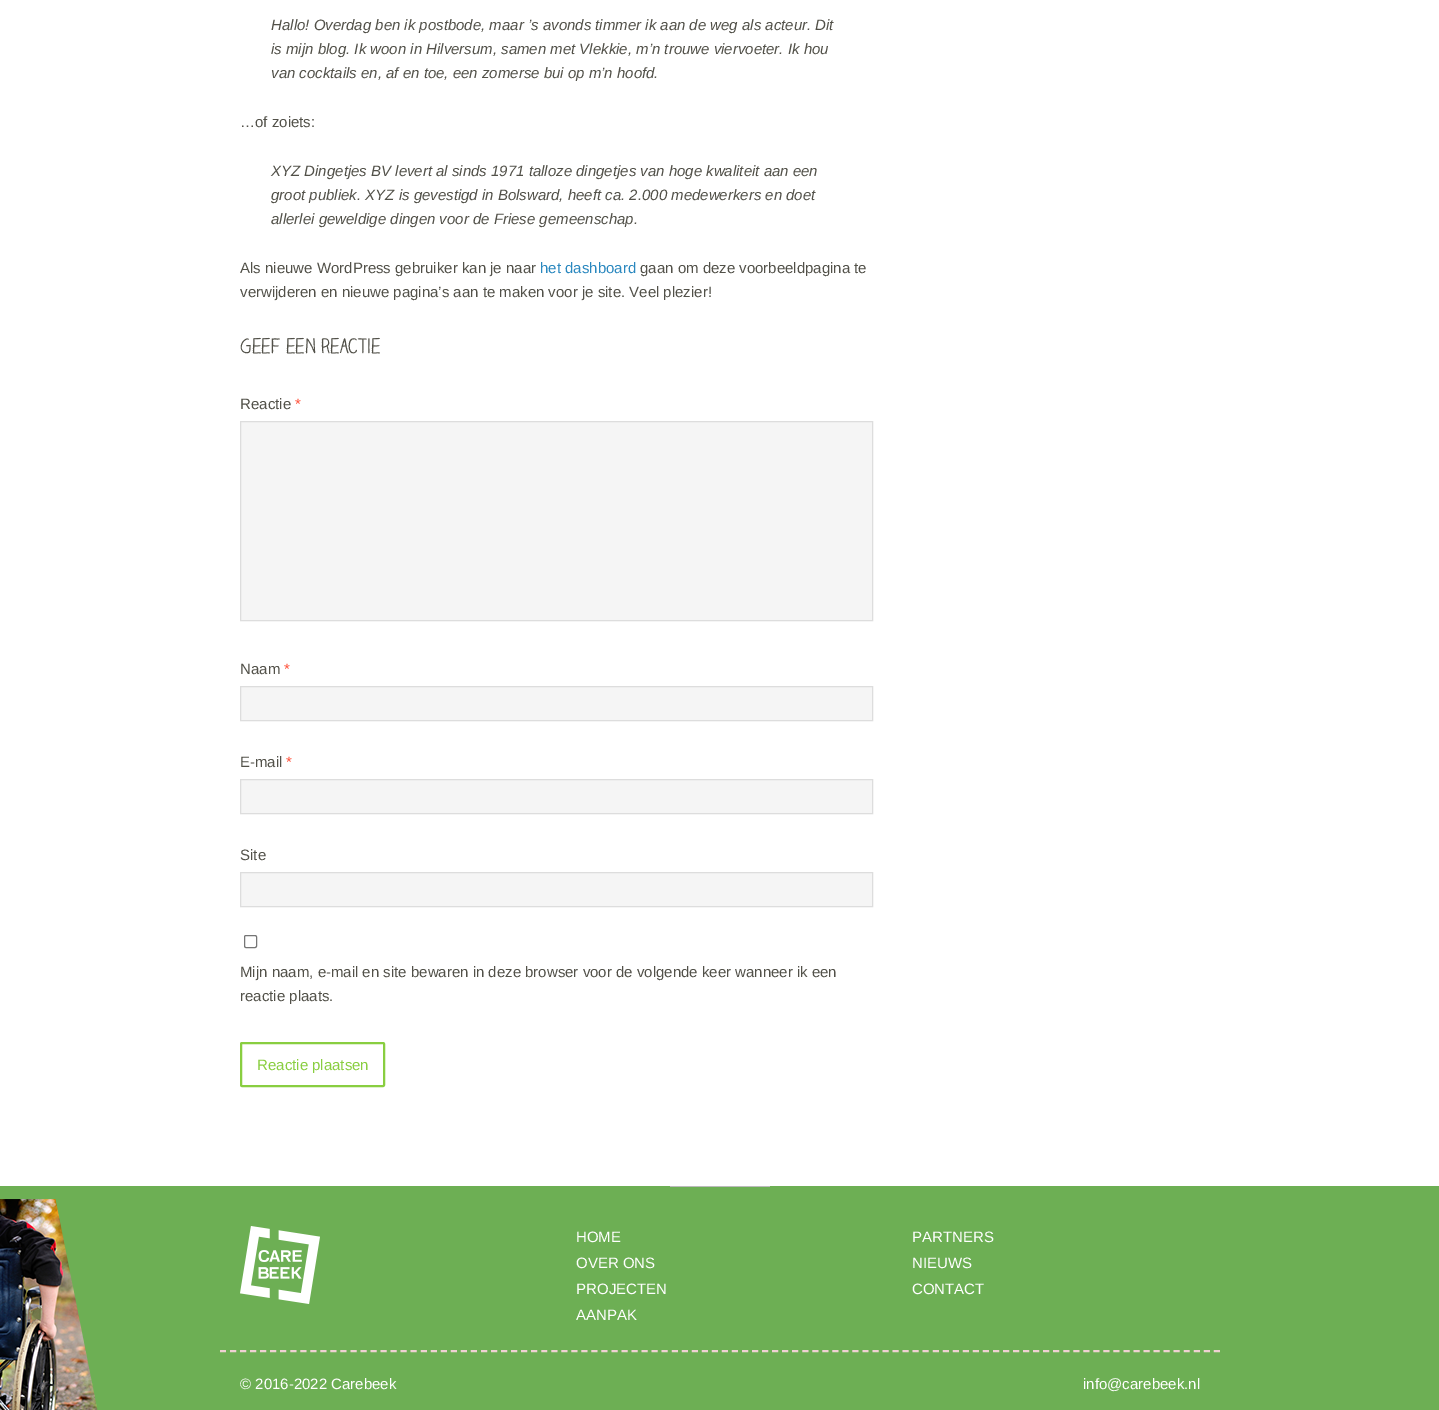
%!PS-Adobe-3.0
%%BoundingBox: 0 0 1439 1410
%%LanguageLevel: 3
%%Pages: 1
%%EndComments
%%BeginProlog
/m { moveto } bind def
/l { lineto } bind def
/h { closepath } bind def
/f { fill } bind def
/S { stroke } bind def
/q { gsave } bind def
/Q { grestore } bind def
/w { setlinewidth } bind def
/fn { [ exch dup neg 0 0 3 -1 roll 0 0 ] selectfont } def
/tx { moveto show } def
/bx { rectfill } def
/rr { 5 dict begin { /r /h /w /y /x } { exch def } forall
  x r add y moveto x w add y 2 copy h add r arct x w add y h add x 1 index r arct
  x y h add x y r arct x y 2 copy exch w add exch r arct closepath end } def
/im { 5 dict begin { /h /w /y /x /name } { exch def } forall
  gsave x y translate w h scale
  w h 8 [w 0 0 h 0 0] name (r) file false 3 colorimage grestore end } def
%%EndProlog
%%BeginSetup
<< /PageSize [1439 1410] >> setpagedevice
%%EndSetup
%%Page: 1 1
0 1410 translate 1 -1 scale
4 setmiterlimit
1 setgray
0 0 1439 1410 bx
/LiberationSans-Italic 15 fn
0.322 0.318 0.286 setrgbcolor
(Hallo! Overdag ben ik postbode, maar ’s avonds timmer ik aan de weg als acteur. Dit) 271 30 tx
(is mijn blog. Ik woon in Hilversum, samen met Vlekkie, m’n trouwe viervoeter. Ik hou) 271 54 tx
(van cocktails en, af en toe, een zomerse bui op m’n hoofd.) 271 78 tx
/LiberationSans-Regular 15 fn
(…of zoiets:) 240 127 tx
/LiberationSans-Italic 15 fn
(XYZ Dingetjes BV levert al sinds 1971 talloze dingetjes van hoge kwaliteit aan een) 271 176 tx
(groot publiek. XYZ is gevestigd in Bolsward, heeft ca. 2.000 medewerkers en doet) 271 200 tx
(allerlei geweldige dingen voor de Friese gemeenschap.) 271 224 tx
/LiberationSans-Regular 15 fn
(Als nieuwe WordPress gebruiker kan je naar) 240 273 tx
0.165 0.533 0.749 setrgbcolor
(het dashboard) 540 273 tx
0.322 0.318 0.286 setrgbcolor
(gaan om deze voorbeeldpagina te) 640 273 tx
(verwijderen en nieuwe pagina’s aan te maken voor je site. Veel plezier!) 240 297 tx
/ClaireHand-Regular 20 fn
(Geef een reactie) 240 353 tx
/LiberationSans-Regular 15 fn
(Reactie) 240 409 tx
1 0.294 0.2 setrgbcolor
(*) 295 409 tx
0.961 setgray
240.5 421.5 m 872.5 421.5 l 872.5 620.5 l 240.5 620.5 l h q f Q
0.867 setgray
S
0.322 0.318 0.286 setrgbcolor
(Naam) 240 674 tx
1 0.294 0.2 setrgbcolor
(*) 284 674 tx
0.961 setgray
240.5 686.5 m 872.5 686.5 l 872.5 720.5 l 240.5 720.5 l h q f Q
0.867 setgray
S
0.322 0.318 0.286 setrgbcolor
(E-mail) 240 767 tx
1 0.294 0.2 setrgbcolor
(*) 286 767 tx
0.961 setgray
240.5 779.5 m 872.5 779.5 l 872.5 813.5 l 240.5 813.5 l h q f Q
0.867 setgray
S
0.322 0.318 0.286 setrgbcolor
(Site) 240 860 tx
0.961 setgray
240.5 872.5 m 872.5 872.5 l 872.5 906.5 l 240.5 906.5 l h q f Q
0.867 setgray
S
0.463 setgray
244.5 935.5 12 12 1.5 rr S
0.322 0.318 0.286 setrgbcolor
(Mijn naam, e-mail en site bewaren in deze browser voor de volgende keer wanneer ik een) 240 977 tx
(reactie plaats.) 240 1001 tx
0.537 0.808 0.251 setrgbcolor
2 w
241 1043 143 43 1 rr S
(Reactie plaatsen) 257 1070 tx
0.427 0.686 0.329 setrgbcolor
0 1186 1439 224 bx
(image0.raw) 0 1199 98 211 im
0.733 setgray
670 1186 100 1 bx
0.937 0.82 0.82 setrgbcolor
[6 4.04] 0 setdash
220 1351 m 1220 1351 l S
(image1.raw) 240 1226 80 78 im
1 setgray
(HOME) 576 1242 tx
(OVER ONS) 576 1268 tx
(PROJECTEN) 576 1294 tx
(AANPAK) 576 1320 tx
(PARTNERS) 912 1242 tx
(NIEUWS) 912 1268 tx
(CONTACT) 912 1294 tx
(© 2016-2022 Carebeek) 240 1389 tx
(info@carebeek.nl) 1083 1389 tx
showpage
%%EOF
